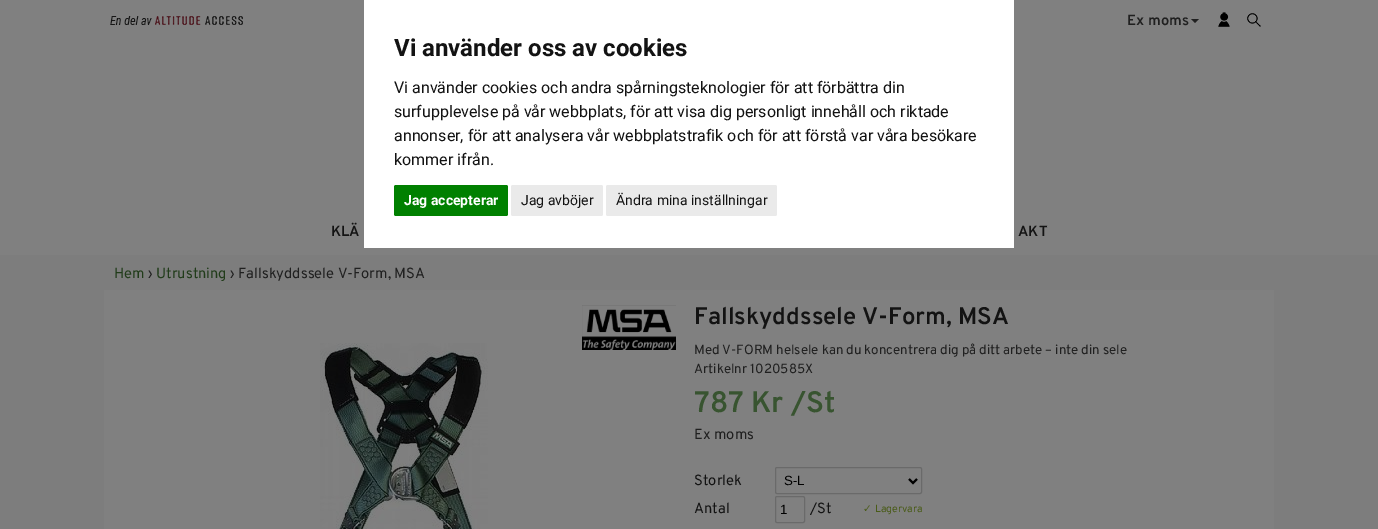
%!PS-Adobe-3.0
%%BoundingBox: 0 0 1378 529
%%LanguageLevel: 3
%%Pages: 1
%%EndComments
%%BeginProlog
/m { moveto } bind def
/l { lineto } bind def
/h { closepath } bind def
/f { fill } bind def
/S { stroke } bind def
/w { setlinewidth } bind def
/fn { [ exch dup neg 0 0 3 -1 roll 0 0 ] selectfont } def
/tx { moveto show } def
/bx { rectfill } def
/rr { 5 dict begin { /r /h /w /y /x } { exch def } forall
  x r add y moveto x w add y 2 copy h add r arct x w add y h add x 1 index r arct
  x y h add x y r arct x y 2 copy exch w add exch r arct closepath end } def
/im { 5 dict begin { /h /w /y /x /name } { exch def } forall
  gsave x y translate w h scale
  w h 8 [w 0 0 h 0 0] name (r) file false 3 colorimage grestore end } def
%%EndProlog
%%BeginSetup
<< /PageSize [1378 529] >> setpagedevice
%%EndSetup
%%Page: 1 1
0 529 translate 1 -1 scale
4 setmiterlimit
0.49 setgray
0 0 1378 529 bx
0.502 setgray
0 0 1378 255 bx
(image0.raw) 110 16 133 9 im
/Overpass-SemiBold 14.7 fn
0.125 setgray
(Ex moms) 1127 25 tx
1191 19 m 1199 19 l 1195 23 l h f
(image1.raw) 1218 12 12 15 im
(image2.raw) 1247 13 14 14 im
0.075 setgray
(KLÄ) 331 236 tx
(AKT) 1018 236 tx
1 setgray
364 0 650 248 bx
/Roboto-Bold 24 fn
0.075 setgray
(Vi använder oss av cookies) 394 56 tx
/Roboto-Regular 16 fn
(Vi använder cookies och andra spårningsteknologier för att förbättra din) 394 93 tx
(surfupplevelse på vår webbplats, för att visa dig personligt innehåll och riktade) 394 117 tx
(annonser, för att analysera vår webbplatstrafik och för att förstå var våra besökare) 394 141 tx
(kommer ifrån.) 394 165 tx
0 0.502 0 setrgbcolor
394 185 114 31 2 rr f
/Roboto-Bold 14 fn
1 setgray
(Jag accepterar) 404 205 tx
0.918 setgray
511 185 92 31 2 rr f
/Roboto-Regular 14 fn
0.075 setgray
(Jag avböjer) 521 205 tx
0.918 setgray
606 185 171 31 2 rr f
0.075 setgray
(Ändra mina inställningar) 616 205 tx
/Overpass-Regular 14.7 fn
0.129 0.235 0.102 setrgbcolor
(Hem) 114 278 tx
0.125 setgray
(›) 148 278 tx
0.129 0.235 0.102 setrgbcolor
(Utrustning) 156 278 tx
0.125 setgray
(› Fallskyddssele V-Form, MSA) 230 278 tx
0.502 setgray
104 290 1170 239 bx
(image3.raw) 582 305 94 45 im
(image4.raw) 320 343 168 186 im
/Overpass-SemiBold 24 fn
0.075 setgray
(Fallskyddssele V-Form, MSA) 694 324 tx
/Overpass-Regular 13.3 fn
0.125 setgray
(Med V-FORM helsele kan du koncentrera dig på ditt arbete – inte din sele) 694 354 tx
(Artikelnr 1020585X) 694 373 tx
/Overpass-SemiBold 29.5 fn
0.22 0.329 0.188 setrgbcolor
(787 Kr /St) 694 412 tx
/Overpass-Regular 14.7 fn
0.125 setgray
(Ex moms) 694 439 tx
0.075 setgray
(Storlek) 694 485 tx
0.416 setgray
775.5 467.5 146 26 1.5 rr S
0 setgray
2 w
909 479 m 913 483 l 917 479 l S
/LiberationSans-Regular 13.3 fn
(S-L) 784 485 tx
/Overpass-Regular 14.7 fn
0.075 setgray
(Antal) 694 513 tx
0.416 setgray
1 w
775.5 496.5 29 26 1.5 rr S
/LiberationSans-Regular 13.3 fn
0 setgray
(1) 780 514 tx
/Overpass-Regular 14.7 fn
0.075 setgray
(/St) 810 513 tx
/DejaVuSans-Regular 10.5 fn
0.29 0.361 0.094 setrgbcolor
(✓) 863 512 tx
/Overpass-Regular 10.5 fn
(Lagervara) 875 512 tx
showpage
%%EOF
